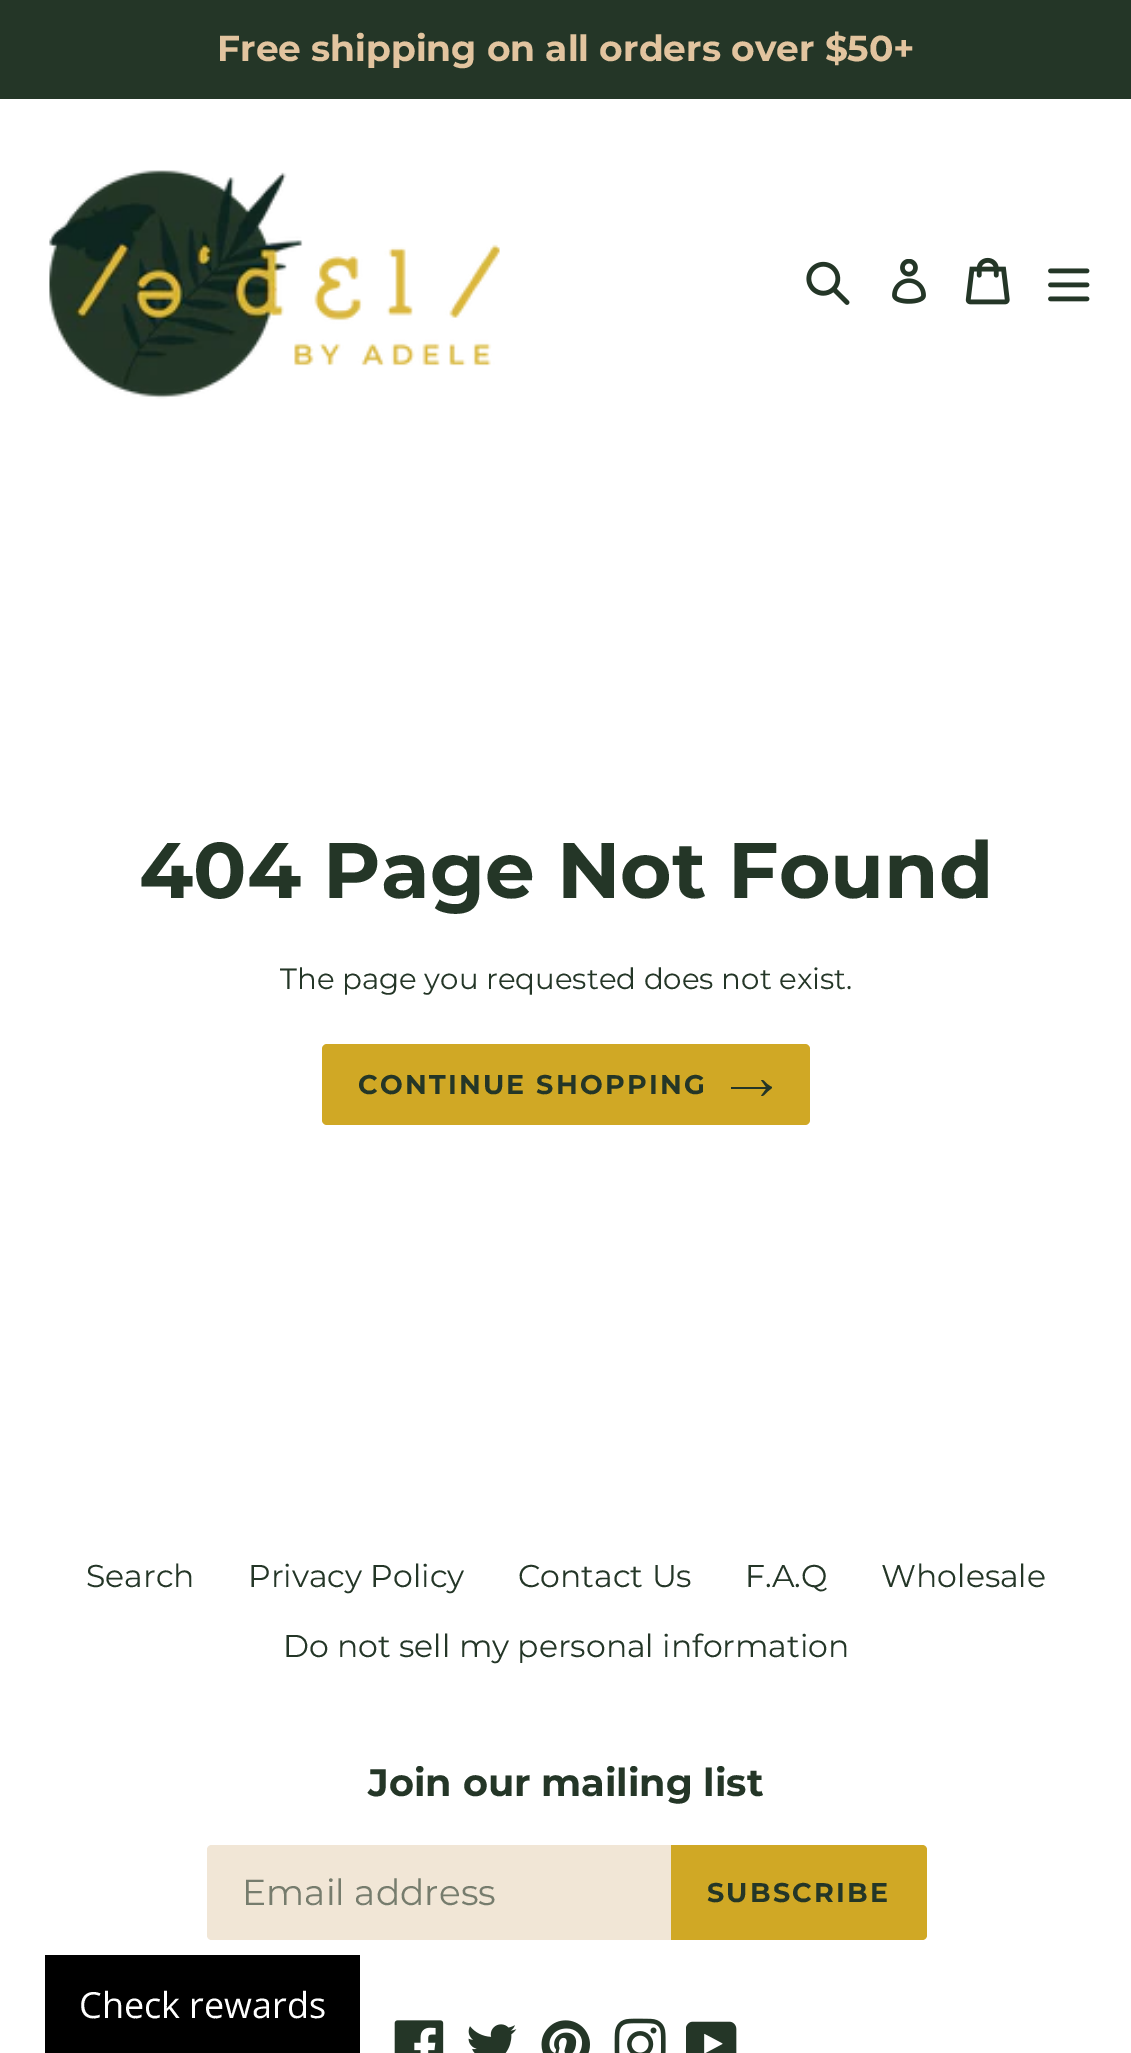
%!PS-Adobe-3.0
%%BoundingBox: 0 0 1131 2053
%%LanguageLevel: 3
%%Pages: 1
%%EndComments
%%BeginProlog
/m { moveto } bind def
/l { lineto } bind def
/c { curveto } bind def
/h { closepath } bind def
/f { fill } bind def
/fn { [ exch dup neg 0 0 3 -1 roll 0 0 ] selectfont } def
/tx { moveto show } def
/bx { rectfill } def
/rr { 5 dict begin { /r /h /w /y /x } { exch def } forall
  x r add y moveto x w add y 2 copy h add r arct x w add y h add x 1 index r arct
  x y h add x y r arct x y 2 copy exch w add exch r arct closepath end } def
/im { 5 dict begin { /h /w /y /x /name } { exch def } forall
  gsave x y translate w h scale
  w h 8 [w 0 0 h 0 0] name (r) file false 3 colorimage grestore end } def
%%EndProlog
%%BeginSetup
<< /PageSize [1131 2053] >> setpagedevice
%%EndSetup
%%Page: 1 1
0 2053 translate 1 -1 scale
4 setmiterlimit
1 setgray
0 0 1131 2053 bx
0.141 0.212 0.153 setrgbcolor
0 0 1131 99 bx
/Montserrat-Bold 36 fn
0.886 0.769 0.624 setrgbcolor
(Free shipping on all orders over $50+) 217 61 tx
(image0.raw) 49 170 451 229 im
(image1.raw) 806 261 44 44 im
(image2.raw) 892 259 34 45 im
(image3.raw) 965 257 45 48 im
(image4.raw) 1048 268 42 34 im
/Montserrat-Bold 78.75 fn
0.141 0.212 0.153 setrgbcolor
(404 Page Not Found) 139 898 tx
/Montserrat-Regular 29.25 fn
(The page you requested does not exist.) 280 989 tx
0.816 0.659 0.145 setrgbcolor
322 1044 488 81 5 rr f
/Montserrat-Bold 27 fn
0.141 0.212 0.153 setrgbcolor
358 1094 m 2.2 0 (CONTINUE SHOPPING) ashow
763 1080 m 766 1083 769 1086 772 1087 c 772 1088 l 769 1090 766 1093 763 1096 c 761 1096 l 766 1089 l 731 1089 l 731 1087 l 766 1087 l 761 1080 l h eofill
/Montserrat-Regular 31.5 fn
(Search) 86 1587 tx
(Privacy Policy) 248 1587 tx
(Contact Us) 518 1587 tx
(F.A.Q) 745 1587 tx
(Wholesale) 881 1587 tx
(Do not sell my personal information) 283 1657 tx
/Montserrat-Bold 38.25 fn
(Join our mailing list) 368 1796 tx
0.945 0.902 0.839 setrgbcolor
212 1845 m 671 1845 l 671 1940 l 212 1940 l 209 1940 207 1938 207 1935 c 207 1850 l 207 1847 209 1845 212 1845 c h f
/Montserrat-Regular 36 fn
0.463 0.486 0.427 setrgbcolor
(Email address) 242 1905 tx
0.816 0.659 0.145 setrgbcolor
671 1845 m 922 1845 l 925 1845 927 1847 927 1850 c 927 1935 l 927 1938 925 1940 922 1940 c 671 1940 l h f
/Montserrat-Bold 27 fn
0.141 0.212 0.153 setrgbcolor
707 1902 m 2.2 0 (SUBSCRIBE) ashow
(image5.raw) 394 2020 50 33 im
(image6.raw) 468 2024 49 29 im
(image7.raw) 541 2020 49 33 im
(image8.raw) 614 2018 52 35 im
(image9.raw) 686 2021 51 32 im
0 setgray
45 1955 315 98 bx
/OpenSans-Regular 36 fn
1 setgray
(Check rewards) 79 2018 tx
showpage
%%EOF
